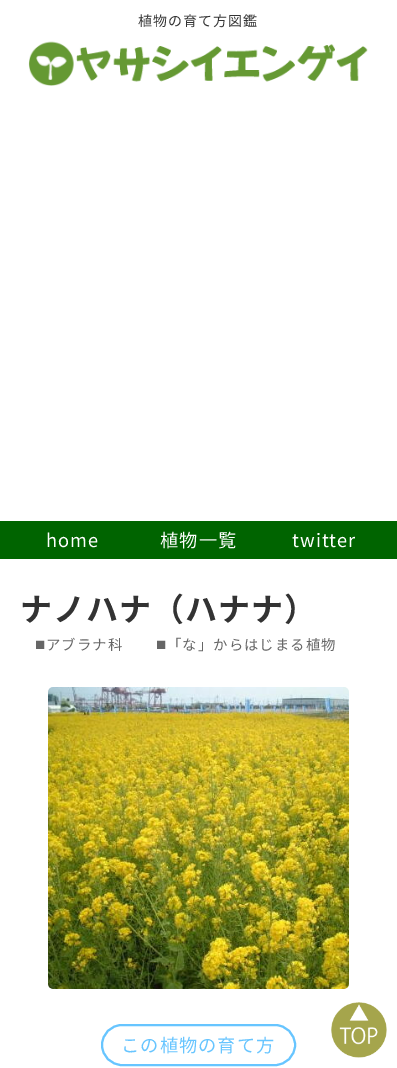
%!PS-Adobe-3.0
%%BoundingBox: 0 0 397 1068
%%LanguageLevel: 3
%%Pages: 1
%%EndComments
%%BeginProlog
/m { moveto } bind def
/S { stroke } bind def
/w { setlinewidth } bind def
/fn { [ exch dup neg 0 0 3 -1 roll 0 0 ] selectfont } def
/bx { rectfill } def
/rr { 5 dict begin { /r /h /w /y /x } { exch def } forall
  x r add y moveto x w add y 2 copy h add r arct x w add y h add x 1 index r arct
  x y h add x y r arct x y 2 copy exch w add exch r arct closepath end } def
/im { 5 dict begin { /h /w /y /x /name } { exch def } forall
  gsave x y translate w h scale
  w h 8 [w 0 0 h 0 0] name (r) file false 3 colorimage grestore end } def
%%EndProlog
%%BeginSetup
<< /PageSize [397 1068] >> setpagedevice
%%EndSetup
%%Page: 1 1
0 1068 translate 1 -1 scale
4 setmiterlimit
1 setgray
0 0 397 1068 bx
/NotoSansJP-Regular 14 fn
0.2 setgray
138 26 m 1 0 (植物の育て方図鑑) ashow
(image0.raw) 28 41 340 45 im
0 0.392 0 setrgbcolor
0 521 397 38 bx
/NotoSansJP-Regular 18.25 fn
1 setgray
46 547 m 1 0 (home) ashow
160 547 m 1 0 (植物一覧) ashow
292 547 m 1 0 (twitter) ashow
/NotoSansJP-Bold 32 fn
0.2 setgray
20 621 m 1 0 (ナノハナ（ハナナ）) ashow
/LiberationSans-Regular 17 fn
0.4 setgray
35 650 m 1 0 (■) ashow
/NotoSansJP-Regular 14.4 fn
46 650 m 1 0 (アブラナ科) ashow
/LiberationSans-Regular 17 fn
156 650 m 1 0 (■) ashow
/NotoSansJP-Regular 14.4 fn
167 650 m 1 0 (「な」からはじまる植物) ashow
(image1.raw) 48 687 301 302 im
0.404 0.773 1 setrgbcolor
2 w
102 1025 193 40 20 rr S
/NotoSansJP-Regular 18.25 fn
121 1052 m 1 0 (この植物の育て方) ashow
(image2.raw) 331 1002 56 56 im
showpage
%%EOF
